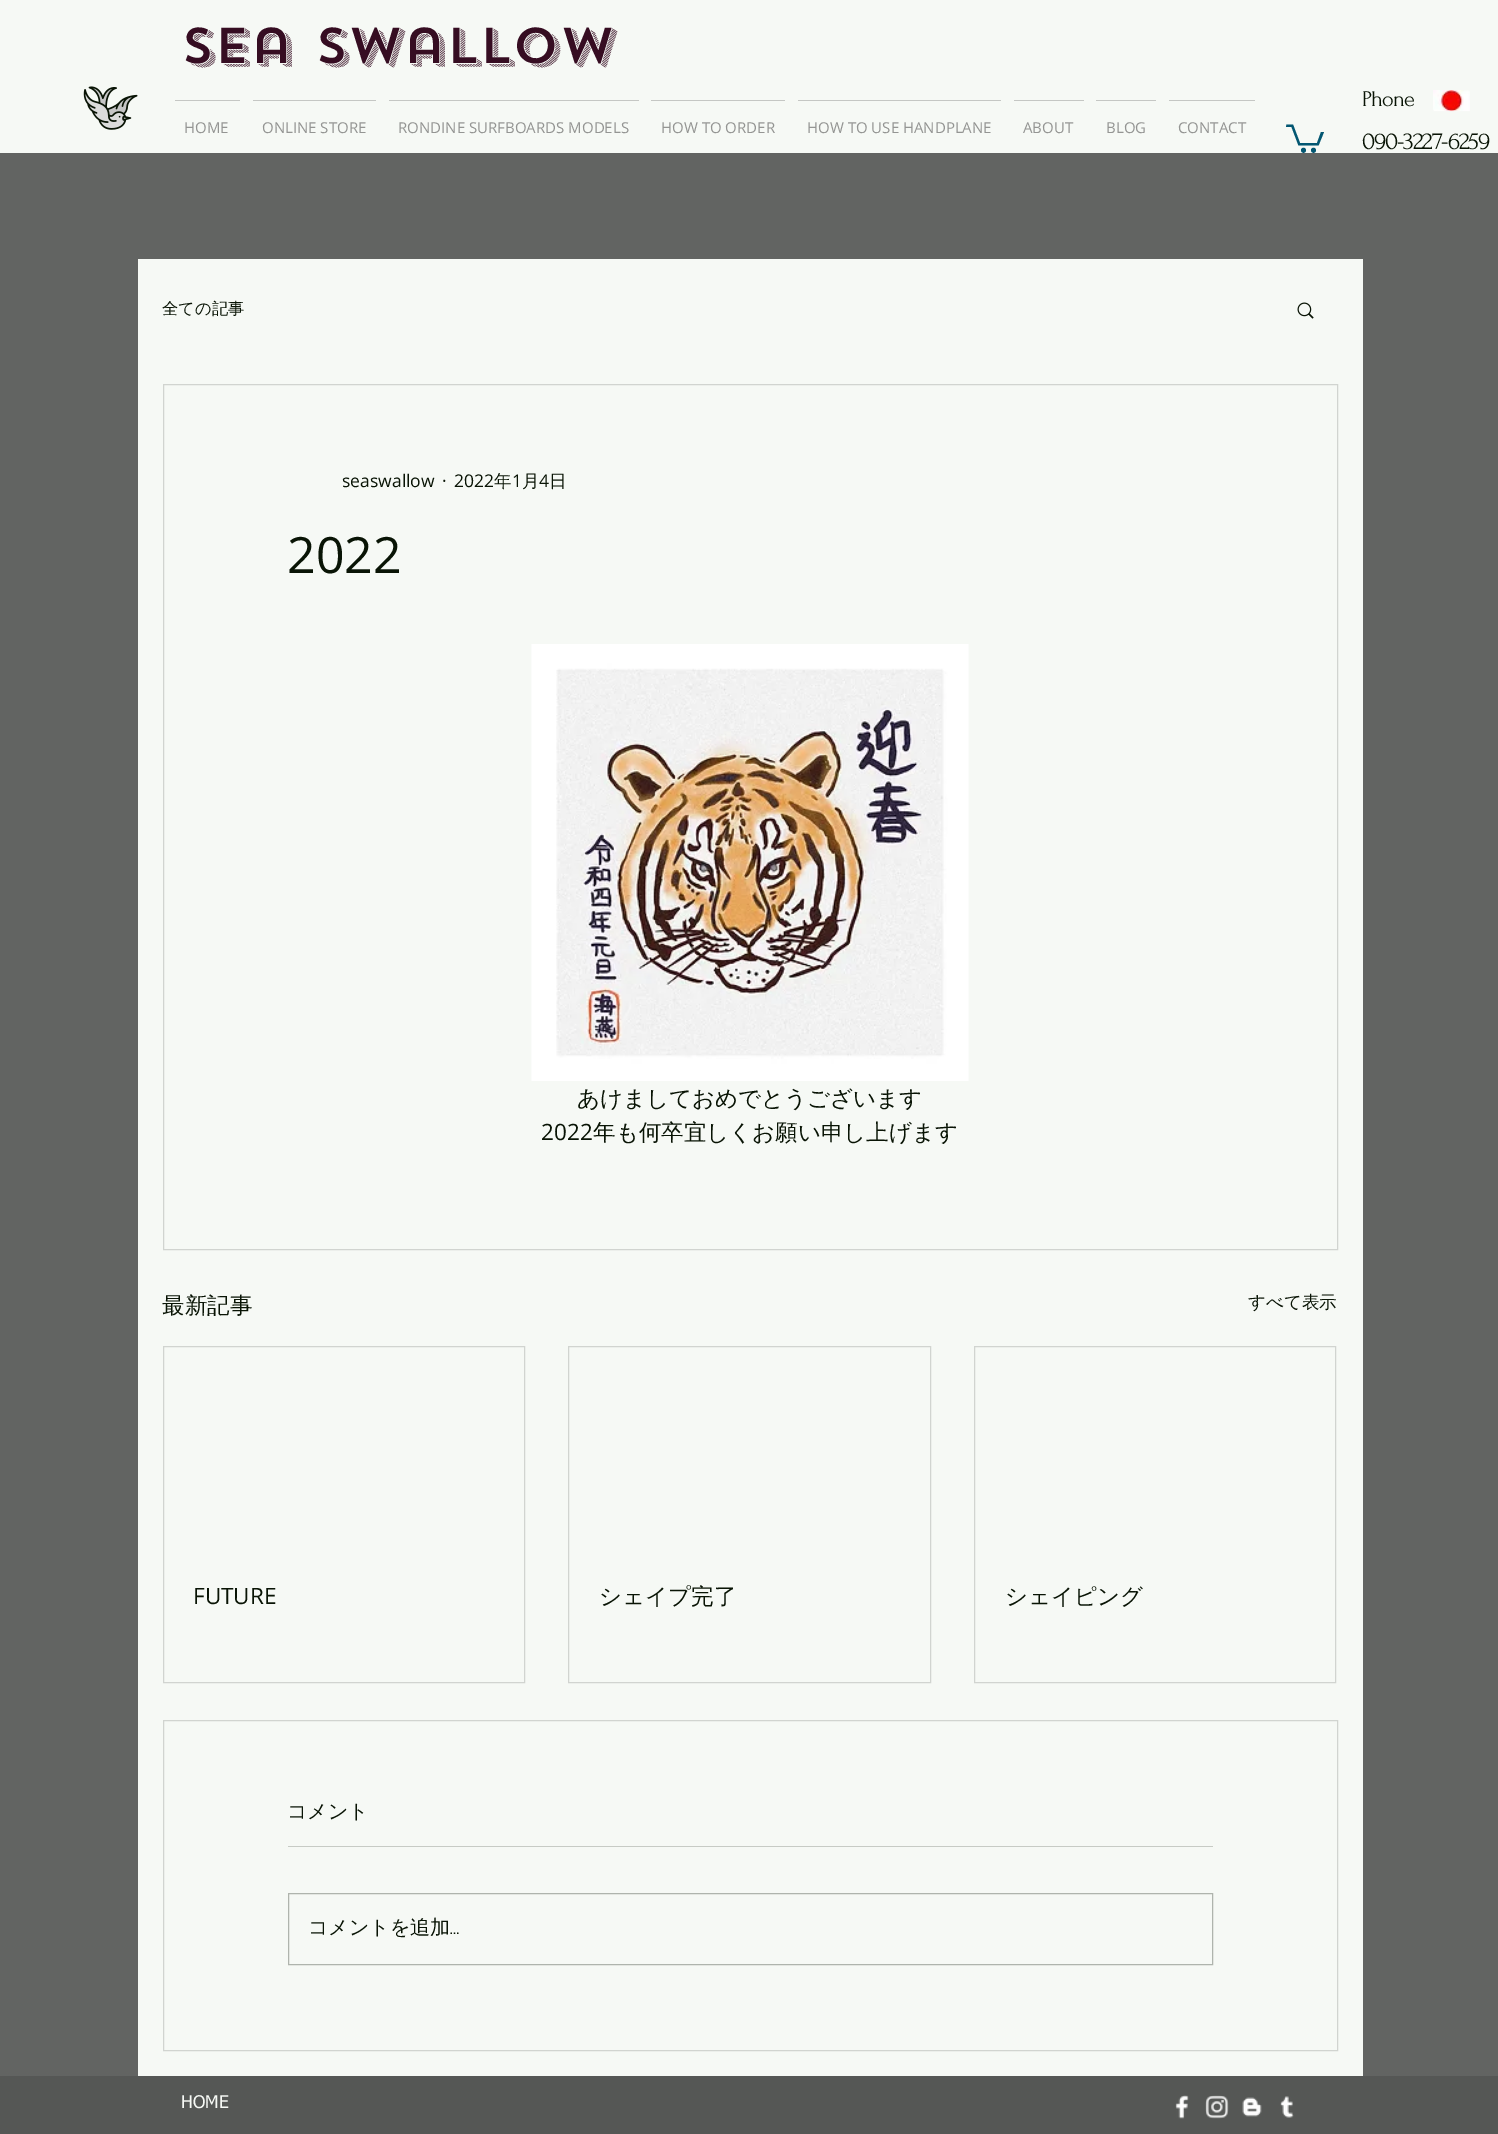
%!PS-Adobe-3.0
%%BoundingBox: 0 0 1498 2134
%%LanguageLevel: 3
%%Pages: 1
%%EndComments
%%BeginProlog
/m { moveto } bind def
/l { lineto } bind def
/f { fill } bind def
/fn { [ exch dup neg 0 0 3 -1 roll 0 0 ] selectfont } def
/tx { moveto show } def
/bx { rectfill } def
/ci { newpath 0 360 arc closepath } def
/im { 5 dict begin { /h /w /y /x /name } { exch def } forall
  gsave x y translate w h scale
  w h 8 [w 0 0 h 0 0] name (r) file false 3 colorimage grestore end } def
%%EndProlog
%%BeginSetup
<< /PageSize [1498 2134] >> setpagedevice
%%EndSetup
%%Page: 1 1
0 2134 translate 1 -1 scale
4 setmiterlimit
0.384 0.392 0.384 setrgbcolor
0 0 1498 2134 bx
0.965 0.976 0.961 setrgbcolor
0 0 1498 153 bx
/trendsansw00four-Medium 50 fn
0.212 0.051 0.133 setrgbcolor
(Sea Swallow) 181 63 tx
(image0.raw) 83 86 55 44 im
/Forum-Regular 22.5 fn
0.035 0.078 0.02 setrgbcolor
1362 106 m -1 0 (Phone) ashow
(image1.raw) 1433 90 37 22 im
0.012 0.341 0.447 setrgbcolor
1324 132 m 1318.5 145.5 l 1298.5 145.5 l 1291.5 127 l 1286 127 l 1286.5 124.5 l 1293 124.5 l 1300 143 l 1317 143 l 1321 132 l f
1313.5 150.3 2.5 ci f
1303.5 150.3 2.5 ci f
/Forum-Regular 25 fn
0.035 0.078 0.02 setrgbcolor
1362 149 m -1.25 0 (090-3227-6259) ashow
0.773 0.78 0.769 setrgbcolor
175 100 65 1 bx
/OpenSans-Regular 15 fn
0.58 0.584 0.576 setrgbcolor
(HOME) 184 133 tx
0.773 0.78 0.769 setrgbcolor
253 100 123 1 bx
0.58 0.584 0.576 setrgbcolor
(ONLINE STORE) 262 133 tx
0.773 0.78 0.769 setrgbcolor
389 100 250 1 bx
0.58 0.584 0.576 setrgbcolor
(RONDINE SURFBOARDS MODELS) 398 133 tx
0.773 0.78 0.769 setrgbcolor
651 100 134 1 bx
0.58 0.584 0.576 setrgbcolor
(HOW TO ORDER) 661 133 tx
0.773 0.78 0.769 setrgbcolor
798 100 203 1 bx
0.58 0.584 0.576 setrgbcolor
(HOW TO USE HANDPLANE) 807 133 tx
0.773 0.78 0.769 setrgbcolor
1014 100 70 1 bx
0.58 0.584 0.576 setrgbcolor
(ABOUT) 1023 133 tx
0.773 0.78 0.769 setrgbcolor
1096 100 60 1 bx
0.58 0.584 0.576 setrgbcolor
(BLOG) 1106 133 tx
0.773 0.78 0.769 setrgbcolor
1169 100 86 1 bx
0.58 0.584 0.576 setrgbcolor
(CONTACT) 1178 133 tx
0.965 0.976 0.961 setrgbcolor
138 259 1225 1817 bx
/WenQuanYiZenHei-Medium 16.25 fn
0.035 0.078 0.02 setrgbcolor
(全ての記事) 162 314 tx
(image2.raw) 1297 302 17 17 im
0.82 0.831 0.816 setrgbcolor
163.5 384.5 1174 865 rectstroke
/OpenSans-Regular 17.5 fn
0.035 0.078 0.02 setrgbcolor
(seaswallow) 342 487 tx
(·) 442 487 tx
(2022) 454 487 tx
/WenQuanYiZenHei-Medium 17.5 fn
(年) 494 487 tx
/OpenSans-Regular 17.5 fn
(1) 512 487 tx
/WenQuanYiZenHei-Medium 17.5 fn
(月) 522 487 tx
/OpenSans-Regular 17.5 fn
(4) 539 487 tx
/WenQuanYiZenHei-Medium 17.5 fn
(日) 549 487 tx
/OpenSans-Regular 50 fn
(2022) 287 573 tx
(image3.raw) 531 644 438 437 im
/WenQuanYiZenHei-Medium 22.5 fn
(あけましておめでとうございます) 577 1106 tx
/OpenSans-Regular 22.5 fn
(2022) 541 1140 tx
/WenQuanYiZenHei-Medium 22.5 fn
(年も何卒宜しくお願い申し上げます) 593 1140 tx
(最新記事) 162 1313 tx
/WenQuanYiZenHei-Medium 17.5 fn
(すべて表示) 1248 1308 tx
0.82 0.831 0.816 setrgbcolor
163.5 1346.5 361 336 rectstroke
/OpenSans-Regular 22.5 fn
0.035 0.078 0.02 setrgbcolor
(FUTURE) 193 1604 tx
0.82 0.831 0.816 setrgbcolor
568.5 1346.5 362 336 rectstroke
/WenQuanYiZenHei-Medium 22.5 fn
0.035 0.078 0.02 setrgbcolor
(シェイプ完了) 599 1604 tx
0.82 0.831 0.816 setrgbcolor
974.5 1346.5 361 336 rectstroke
0.035 0.078 0.02 setrgbcolor
(シェイピング) 1005 1604 tx
0.82 0.831 0.816 setrgbcolor
163.5 1720.5 1174 330 rectstroke
/WenQuanYiZenHei-Medium 20 fn
0.035 0.078 0.02 setrgbcolor
(コメント) 287 1818 tx
0.78 0.796 0.773 setrgbcolor
288 1846 925 1 bx
0.686 0.706 0.678 setrgbcolor
288.5 1893.5 924 71 rectstroke
0.035 0.078 0.02 setrgbcolor
(コメントを追加) 308 1934 tx
/Poppins-ExtraLight 20 fn
(…) 450 1934 tx
0.333 0.341 0.333 setrgbcolor
0 2076 1498 58 bx
/tahoma-Regular 17.5 fn
0.965 0.976 0.961 setrgbcolor
(HOME) 181 2108 tx
(image4.raw) 1175 2095 14 24 im
(image5.raw) 1205 2095 24 24 im
(image6.raw) 1242 2097 20 20 im
(image7.raw) 1280 2096 14 22 im
showpage
%%EOF
